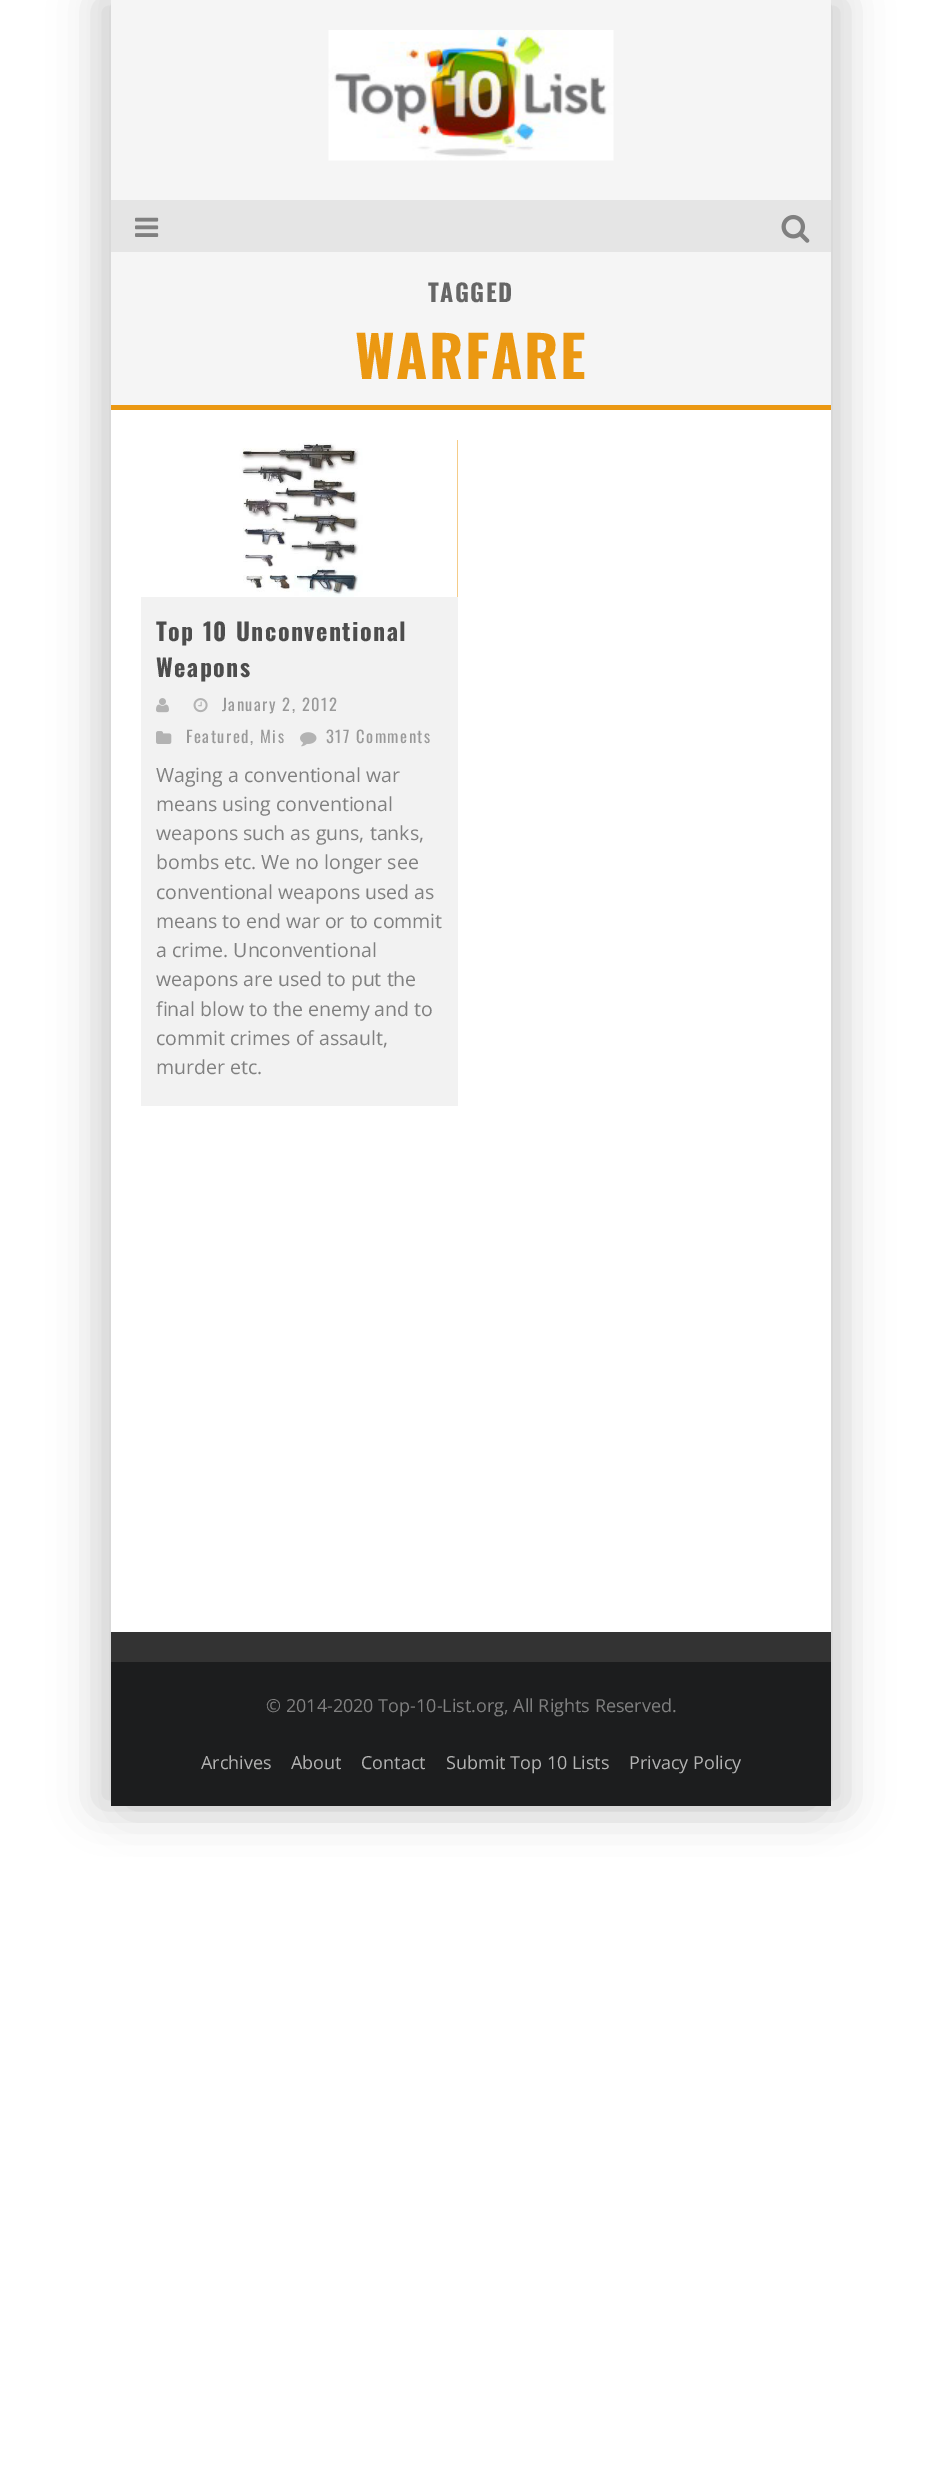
%!PS-Adobe-3.0
%%BoundingBox: 0 0 941 2490
%%LanguageLevel: 3
%%Pages: 1
%%EndComments
%%BeginProlog
/m { moveto } bind def
/l { lineto } bind def
/h { closepath } bind def
/q { gsave } bind def
/Q { grestore } bind def
/fn { [ exch dup neg 0 0 3 -1 roll 0 0 ] selectfont } def
/tx { moveto show } def
/bx { rectfill } def
/al { dup .setfillconstantalpha .setstrokeconstantalpha } def
/rr { 5 dict begin { /r /h /w /y /x } { exch def } forall
  x r add y moveto x w add y 2 copy h add r arct x w add y h add x 1 index r arct
  x y h add x y r arct x y 2 copy exch w add exch r arct closepath end } def
/sh { 12 dict begin { /a /b /q /h /w /y /x } { exch def } forall gsave /was 0 def
  9 -2 -9 { dup b mul 4 div /e exch def 1 sub .425 mul 2.718 exch exp 1 add a .99 .min exch div /now exch def
    1 1 now sub 1 was sub div sub al /was now def
    w h .min e 2 mul add 0 gt { x e sub y e sub w e 2 mul add h e 2 mul add
      q e add b .6 mul add w h .min 2 div e add .min 0 .max rr fill } if } for grestore end } def
/im { 5 dict begin { /h /w /y /x /name } { exch def } forall
  gsave x y translate w h scale
  w h 8 [w 0 0 h 0 0] name (r) file false 3 colorimage grestore end } def
%%EndProlog
%%BeginSetup
<< /PageSize [941 2490] /PageUsesTransparency true >> setpagedevice
%%EndSetup
%%Page: 1 1
0 .pushpdf14devicefilter
0 2490 translate 1 -1 scale
4 setmiterlimit
1 setgray
0 0 941 2490 bx
q
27 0 m 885 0 l 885 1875 l 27 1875 l h 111 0 m 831 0 l 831 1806 l 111 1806 l h eoclip newpath
0 setgray
96 0 720 1806 0 22.5 0.15 sh
Q
q
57 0 m 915 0 l 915 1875 l 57 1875 l h 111 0 m 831 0 l 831 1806 l 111 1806 l h eoclip newpath
0 setgray
126 0 720 1806 0 22.5 0.15 sh
Q
0.961 setgray
111 0 720 200 bx
(image0.raw) 328 30 286 131 im
0.898 setgray
111 200 720 52 bx
(image1.raw) 135 217 24 20 im
(image2.raw) 781 214 29 29 im
0.961 setgray
111 252 720 153 bx
0.922 0.596 0.071 setrgbcolor
111 405 720 5 bx
/Oswald-Bold 24 fn
0.4 setgray
428 302 m 1.5 0 (TAGGED) ashow
/Oswald-Bold 57 fn
0.922 0.596 0.071 setrgbcolor
355 379 m 1.5 0 (WARFARE) ashow
0.949 setgray
141 597 317 509 bx
0.922 0.596 0.071 setrgbcolor
457 440 1 157 bx
(image3.raw) 141 440 317 157 im
/Oswald-Bold 24 fn
0.302 setgray
156 641 m 1.5 0 (Top 10 Unconventional) ashow
156 677 m 1.5 0 (Weapons) ashow
(image4.raw) 156 698 13 15 im
(image5.raw) 193 698 15 15 im
/Oswald-Regular 16.5 fn
0.6 setgray
222 711 m 1.5 0 (January 2, 2012) ashow
(image6.raw) 156 731 16 13 im
186 743 m 1.5 0 (Featured, Mis) ashow
(image7.raw) 300 732 17 15 im
326 743 m 1.5 0 (317 Comments) ashow
/OpenSans-Regular 19.5 fn
0.502 setgray
(Waging a conventional war) 156 782 tx
(means using conventional) 156 811 tx
(weapons such as guns, tanks,) 156 840 tx
(bombs etc. We no longer see) 156 869 tx
(conventional weapons used as) 156 899 tx
(means to end war or to commit) 156 928 tx
(a crime. Unconventional) 156 957 tx
(weapons are used to put the) 156 986 tx
(final blow to the enemy and to) 156 1016 tx
(commit crimes of assault,) 156 1045 tx
(murder etc.) 156 1074 tx
0.2 setgray
111 1632 720 30 bx
0.11 0.114 0.118 setrgbcolor
111 1662 720 144 bx
/OpenSans-Regular 18 fn
0.502 setgray
(© 2014-2020 Top-10-List.org, All Rights Reserved.) 266 1712 tx
0.702 setgray
(Archives) 201 1769 tx
(About) 291 1769 tx
(Contact) 361 1769 tx
(Submit Top 10 Lists) 446 1769 tx
(Privacy Policy) 629 1769 tx
.poppdf14devicefilter showpage
%%EOF
